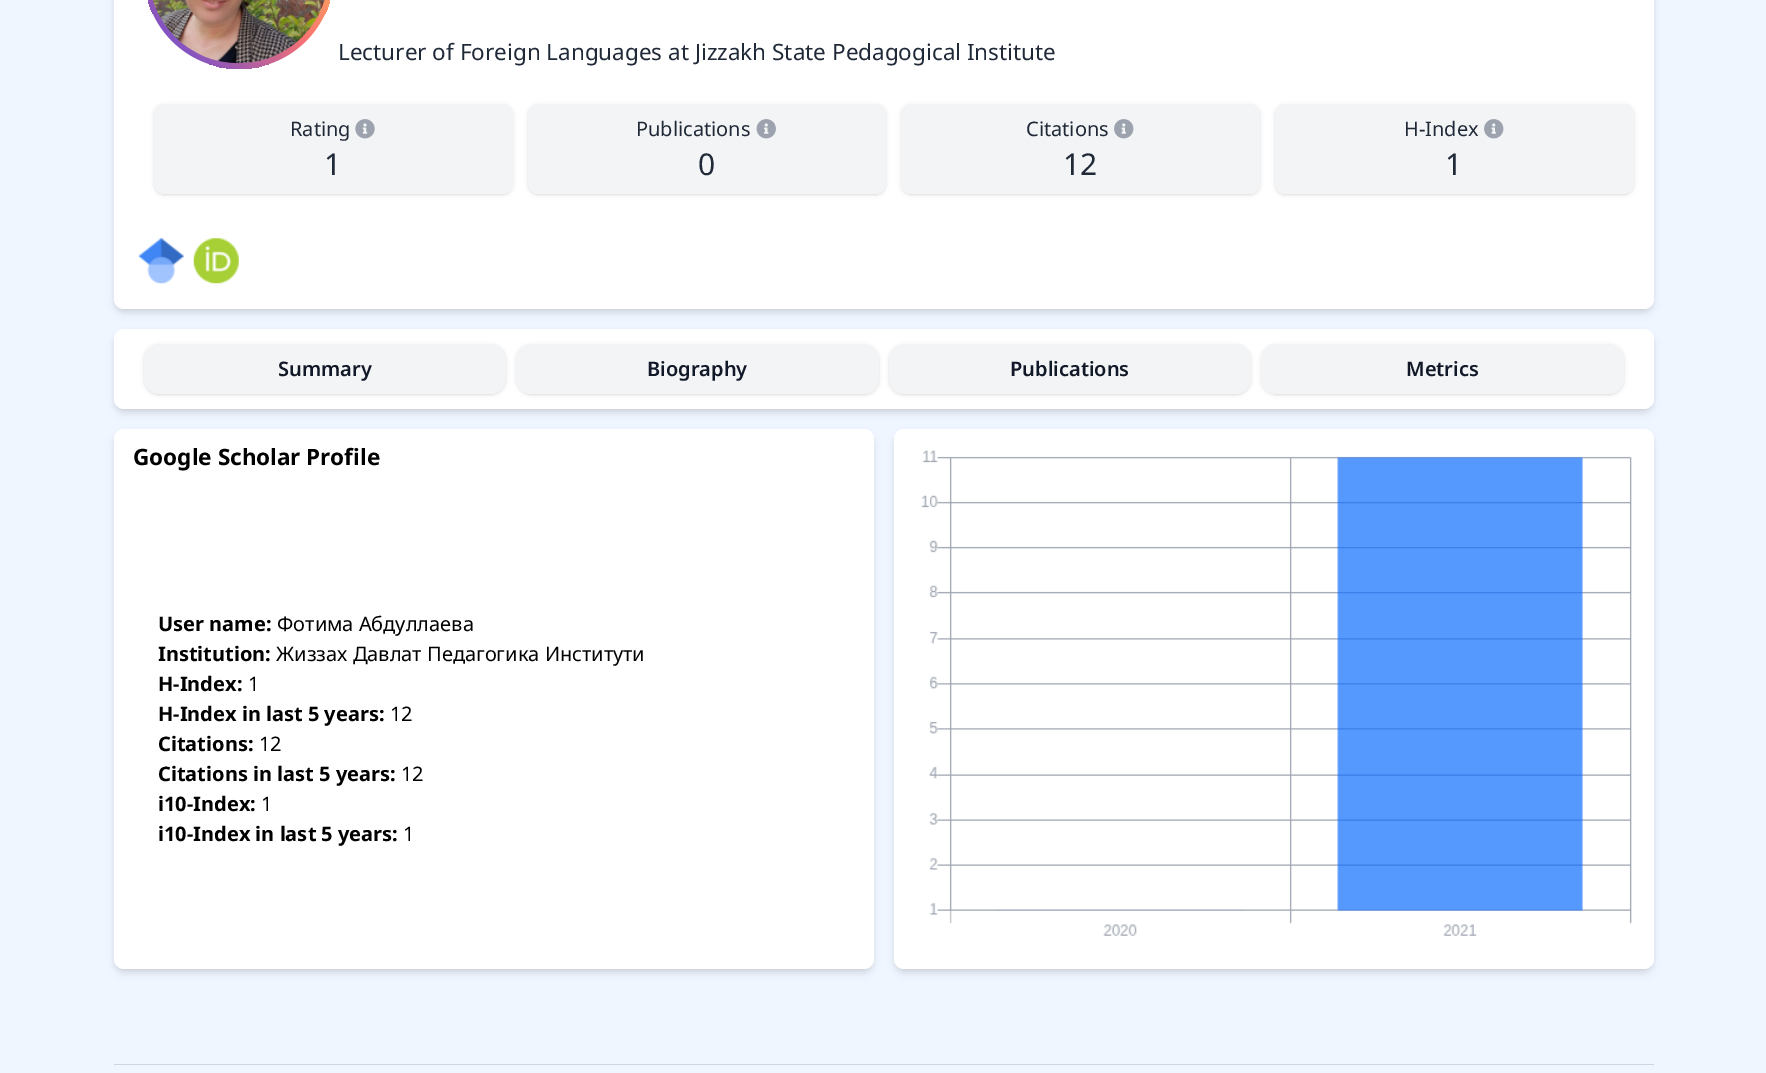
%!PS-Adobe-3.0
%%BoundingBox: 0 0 1766 1073
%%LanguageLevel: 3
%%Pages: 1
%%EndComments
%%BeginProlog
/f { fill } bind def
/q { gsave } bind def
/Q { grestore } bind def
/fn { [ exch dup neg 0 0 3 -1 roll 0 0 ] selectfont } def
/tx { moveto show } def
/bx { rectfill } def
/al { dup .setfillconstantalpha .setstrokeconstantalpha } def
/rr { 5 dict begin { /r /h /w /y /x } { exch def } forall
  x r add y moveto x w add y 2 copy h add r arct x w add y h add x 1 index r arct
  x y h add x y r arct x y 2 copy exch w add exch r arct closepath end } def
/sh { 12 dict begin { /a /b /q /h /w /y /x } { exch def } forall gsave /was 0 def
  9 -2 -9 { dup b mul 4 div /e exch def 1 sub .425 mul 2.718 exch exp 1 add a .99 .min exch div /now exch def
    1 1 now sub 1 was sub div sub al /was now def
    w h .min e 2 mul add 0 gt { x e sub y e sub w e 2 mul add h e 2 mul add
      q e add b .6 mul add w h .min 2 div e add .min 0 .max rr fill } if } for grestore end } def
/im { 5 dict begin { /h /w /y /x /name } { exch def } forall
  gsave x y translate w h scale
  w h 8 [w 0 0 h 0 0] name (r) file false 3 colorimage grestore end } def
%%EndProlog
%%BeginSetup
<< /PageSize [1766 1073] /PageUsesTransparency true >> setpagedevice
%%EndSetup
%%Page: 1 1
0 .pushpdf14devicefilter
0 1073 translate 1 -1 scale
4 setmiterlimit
0.937 0.965 1 setrgbcolor
0 0 1766 1073 bx
0 setgray
116 -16 1535 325 8 2.5 0.1 sh
115 -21 1538 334 9 4 0.1 sh
1 setgray
114 -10 1540 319 10 rr f
q 144 -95 190 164 95 rr clip newpath
<< /ShadingType 2 /ColorSpace /DeviceRGB /Coords [334 -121 144 69] /Extend [true true] /Function << /FunctionType 3 /Domain [0 1] /Functions [<< /FunctionType 2 /Domain [0 1] /C0 [0.992 0.878 0.278] /C1 [0.973 0.443 0.443] /N 1 >> << /FunctionType 2 /Domain [0 1] /C0 [0.973 0.443 0.443] /C1 [0.31 0.275 0.898] /N 1 >>] /Bounds [0.5] /Encode [0 1 0 1] >> >> shfill Q
(image0.raw) 153 0 172 64 im
/NotoSans-Regular 22.5 fn
0.122 0.161 0.216 setrgbcolor
(Lecturer of Foreign Languages at Jizzakh State Pedagogical Institute) 338 60 tx
0 setgray
155 106 356 88 9 1 0.1 sh
154 105 359 90 10 2 0.1 sh
0.953 0.957 0.965 setrgbcolor
154 104 359 90 10 rr f
/NotoSans-Regular 20 fn
0.122 0.161 0.216 setrgbcolor
(Rating) 290 136 tx
(image1.raw) 355 119 20 20 im
/NotoSans-Regular 30 fn
(1) 324 175 tx
0 setgray
529 106 356 88 9 1 0.1 sh
528 105 358 90 10 2 0.1 sh
0.953 0.957 0.965 setrgbcolor
528 104 358 90 10 rr f
/NotoSans-Regular 20 fn
0.122 0.161 0.216 setrgbcolor
(Publications) 636 136 tx
(image2.raw) 756 119 20 20 im
/NotoSans-Regular 30 fn
(0) 698 175 tx
0 setgray
903 106 356 88 9 1 0.1 sh
901 105 359 90 10 2 0.1 sh
0.953 0.957 0.965 setrgbcolor
901 104 359 90 10 rr f
/NotoSans-Regular 20 fn
0.122 0.161 0.216 setrgbcolor
(Citations) 1026 136 tx
(image3.raw) 1114 119 20 20 im
/NotoSans-Regular 30 fn
(12) 1063 175 tx
0 setgray
1276 106 357 88 9 1 0.1 sh
1275 105 359 90 10 2 0.1 sh
0.953 0.957 0.965 setrgbcolor
1275 104 359 90 10 rr f
/NotoSans-Regular 20 fn
0.122 0.161 0.216 setrgbcolor
(H-Index) 1404 136 tx
(image3.raw) 1484 119 20 20 im
/NotoSans-Regular 30 fn
(1) 1445 175 tx
(image4.raw) 138 238 46 46 im
(image5.raw) 193 238 46 46 im
0 setgray
116 334 1535 75 8 2.5 0.1 sh
115 335 1538 78 9 4 0.1 sh
1 setgray
114 329 1540 80 10 rr f
0 setgray
145 346 360 48 14 1 0.1 sh
144 345 362 50 15 2 0.1 sh
0.953 0.957 0.965 setrgbcolor
144 344 362 50 15 rr f
/NotoSans-SemiBold 20 fn
0.067 0.094 0.153 setrgbcolor
(Summary) 278 376 tx
0 setgray
518 346 360 48 14 1 0.1 sh
516 345 363 50 15 2 0.1 sh
0.953 0.957 0.965 setrgbcolor
516 344 363 50 15 rr f
0.067 0.094 0.153 setrgbcolor
(Biography) 647 376 tx
0 setgray
890 346 360 48 14 1 0.1 sh
889 345 362 50 15 2 0.1 sh
0.953 0.957 0.965 setrgbcolor
889 344 362 50 15 rr f
0.067 0.094 0.153 setrgbcolor
(Publications) 1010 376 tx
0 setgray
1263 346 360 48 14 1 0.1 sh
1261 345 363 50 15 2 0.1 sh
0.953 0.957 0.965 setrgbcolor
1261 344 363 50 15 rr f
0.067 0.094 0.153 setrgbcolor
(Metrics) 1406 376 tx
0 setgray
116 434 755 535 8 2.5 0.1 sh
115 435 758 538 9 4 0.1 sh
1 setgray
114 429 760 540 10 rr f
/NotoSans-Bold 22.5 fn
0 setgray
(Google Scholar Profile) 133 465 tx
/NotoSans-Bold 20 fn
(User name:) 158 631 tx
/NotoSans-Regular 20 fn
(Фотима Абдуллаева) 277 631 tx
/NotoSans-Bold 20 fn
(Institution:) 158 661 tx
/NotoSans-Regular 20 fn
(Жиззах Давлат Педагогика Институти) 276 661 tx
/NotoSans-Bold 20 fn
(H-Index:) 158 691 tx
/NotoSans-Regular 20 fn
(1) 248 691 tx
/NotoSans-Bold 20 fn
(H-Index in last 5 years:) 158 721 tx
/NotoSans-Regular 20 fn
(12) 390 721 tx
/NotoSans-Bold 20 fn
(Citations:) 158 751 tx
/NotoSans-Regular 20 fn
(12) 259 751 tx
/NotoSans-Bold 20 fn
(Citations in last 5 years:) 158 781 tx
/NotoSans-Regular 20 fn
(12) 401 781 tx
/NotoSans-Bold 20 fn
(i10-Index:) 158 811 tx
/NotoSans-Regular 20 fn
(1) 261 811 tx
/NotoSans-Bold 20 fn
(i10-Index in last 5 years:) 158 841 tx
/NotoSans-Regular 20 fn
(1) 403 841 tx
896 434 755 535 8 2.5 0.1 sh
895 435 758 538 9 4 0.1 sh
1 setgray
894 429 760 540 10 rr f
(image6.raw) 921 450 711 486 im
0.82 0.835 0.859 setrgbcolor
114 1064 1540 1 bx
.poppdf14devicefilter showpage
%%EOF
